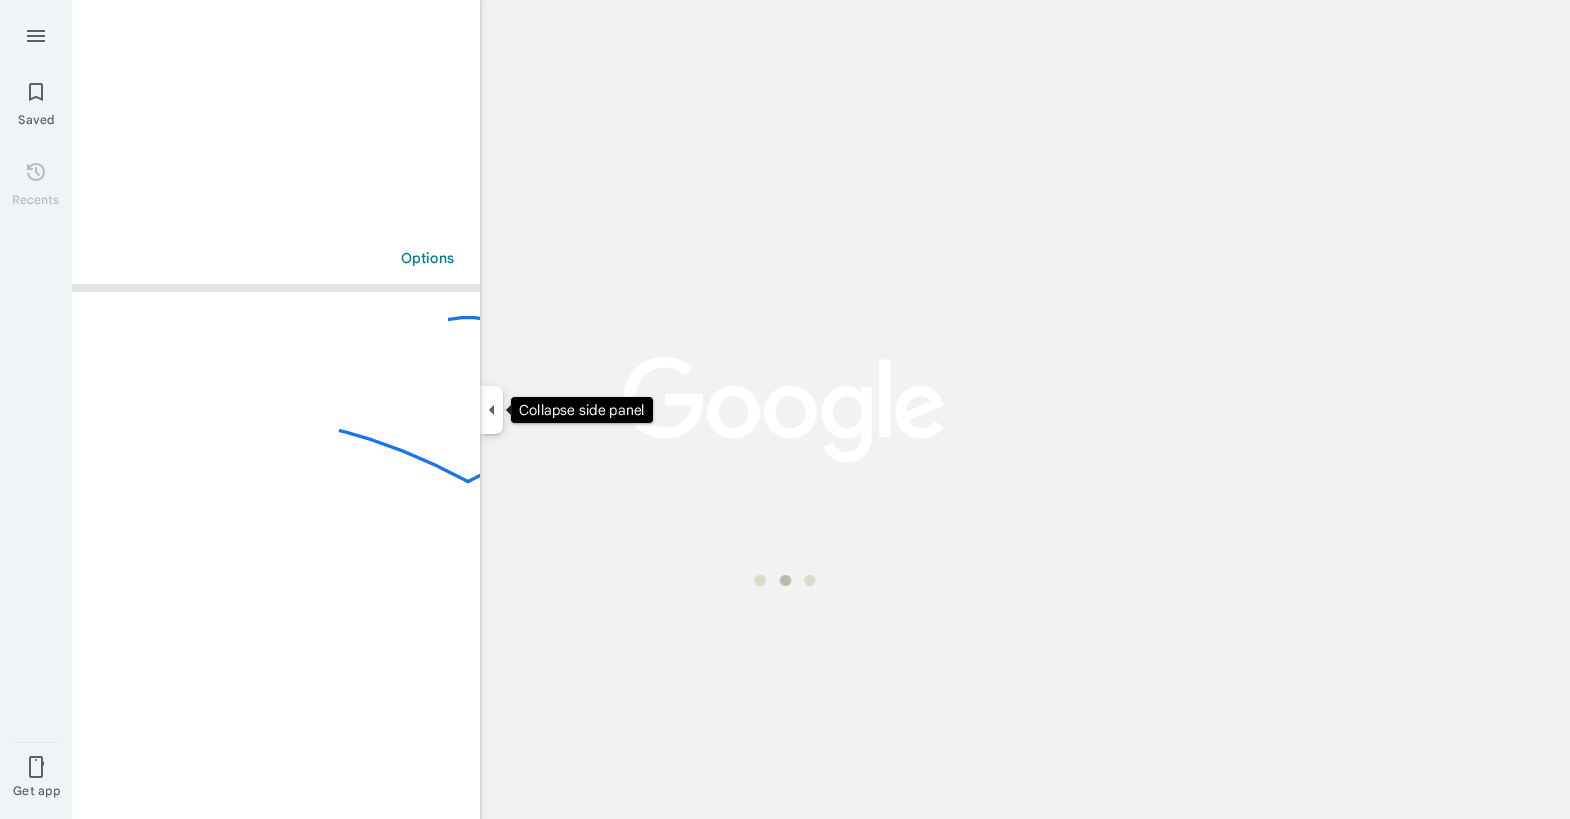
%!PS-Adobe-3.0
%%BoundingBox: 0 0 1570 819
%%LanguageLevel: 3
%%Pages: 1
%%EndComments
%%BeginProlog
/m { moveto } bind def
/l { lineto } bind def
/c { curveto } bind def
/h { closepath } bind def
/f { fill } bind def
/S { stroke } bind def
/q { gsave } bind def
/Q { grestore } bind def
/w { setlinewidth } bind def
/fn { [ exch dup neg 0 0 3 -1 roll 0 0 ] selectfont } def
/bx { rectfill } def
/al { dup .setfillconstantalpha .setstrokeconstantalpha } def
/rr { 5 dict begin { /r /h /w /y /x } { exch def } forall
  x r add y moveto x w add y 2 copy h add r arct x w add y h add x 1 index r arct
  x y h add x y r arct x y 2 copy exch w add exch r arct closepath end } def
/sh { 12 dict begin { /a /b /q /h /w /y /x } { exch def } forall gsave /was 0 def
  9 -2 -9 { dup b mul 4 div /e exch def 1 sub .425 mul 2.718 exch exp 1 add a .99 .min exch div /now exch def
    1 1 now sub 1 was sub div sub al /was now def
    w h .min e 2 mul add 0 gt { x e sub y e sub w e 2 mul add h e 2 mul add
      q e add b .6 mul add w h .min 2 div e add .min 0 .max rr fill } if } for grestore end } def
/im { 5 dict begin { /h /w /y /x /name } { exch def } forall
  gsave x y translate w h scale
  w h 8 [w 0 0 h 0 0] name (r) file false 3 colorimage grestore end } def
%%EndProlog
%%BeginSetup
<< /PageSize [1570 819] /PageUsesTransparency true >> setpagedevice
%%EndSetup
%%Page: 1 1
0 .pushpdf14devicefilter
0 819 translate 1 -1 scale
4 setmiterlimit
0.949 setgray
0 0 1570 819 bx
0.235 0.251 0.263 setrgbcolor
478 386 27 52 10 3 0.15 sh
480 387 23 48 8 1 0.3 sh
1 setgray
480 386 m 495 386 l 499.5 386 503 389.5 503 394 c 503 426 l 503 430.5 499.5 434 495 434 c 480 434 l h f
0.369 setgray
494 415 m 489 410 l 494 405 l h f
0.235 0.251 0.263 setrgbcolor
70 0 412 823 0 3 0.15 sh
72 1 408 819 0 1 0.3 sh
0.937 0.961 0.965 setrgbcolor
0 0 72 819 bx
(image0.raw) 27 30 18 12 im
(image1.raw) 29 83 14 18 im
/GoogleSans-Medium 12 fn
0.369 setgray
18 124 m 0.25 0 (Saved) ashow
(image2.raw) 27 163 18 18 im
0.722 0.737 0.737 setrgbcolor
12 204 m 0.25 0 (Recents) ashow
0.89 setgray
14 742 44 1 bx
(image3.raw) 29 756 15 22 im
0.369 setgray
13 795 m 0.25 0 (Get app) ashow
1 setgray
72 0 408 819 bx
0.89 setgray
72 284 408 8 bx
/GoogleSans-Medium 14 fn
0 0.482 0.545 setrgbcolor
401 263 m 0.1 0 (Options) ashow
q
448 316 32 503 rectclip
0.102 0.451 0.91 setrgbcolor
3 w
325 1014 m 287 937.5 265.5 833.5 265.5 725.5 c 265.5 617.5 287 513.5 325 437 c 363 360.5 414.5 317.5 468 317.5 c 521.5 317.5 573 360.5 611 437 c 649 513.5 670.5 617.5 670.5 725.5 c 670.5 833.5 649 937.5 611 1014 c S
Q
q
264 316 204 503 rectclip
0.102 0.451 0.91 setrgbcolor
3 w
339 430.5 m 422 450.5 515.5 501 598 570.5 c 681 640 747 723 781 801.5 c 815 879.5 815 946.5 780.5 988 c 746 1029 680 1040.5 597 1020.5 c S
Q
q
468 316 12 503 rectclip
0.102 0.451 0.91 setrgbcolor
3 w
339 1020.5 m 256 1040.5 190 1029 155.5 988 c 121 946.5 121 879.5 155 801.5 c 189 723 255 640 338 570.5 c 420.5 501 514 450.5 597 430.5 c S
Q
(image4.raw) 623 356 321 106 im
0.235 0.251 0.263 setrgbcolor
510 397 144 28 5 1.5 0.15 sh
511 398 142 26 4 1 0.3 sh
0 setgray
511 397 142 26 4 rr f
0.122 setgray
512 404 m 512 416 l 506 410 l h f
/GoogleSans-Regular 14 fn
1 setgray
519 415 m 0.1 0 (Collapse side panel) ashow
(image5.raw) 754 575 62 11 im
.poppdf14devicefilter showpage
%%EOF
